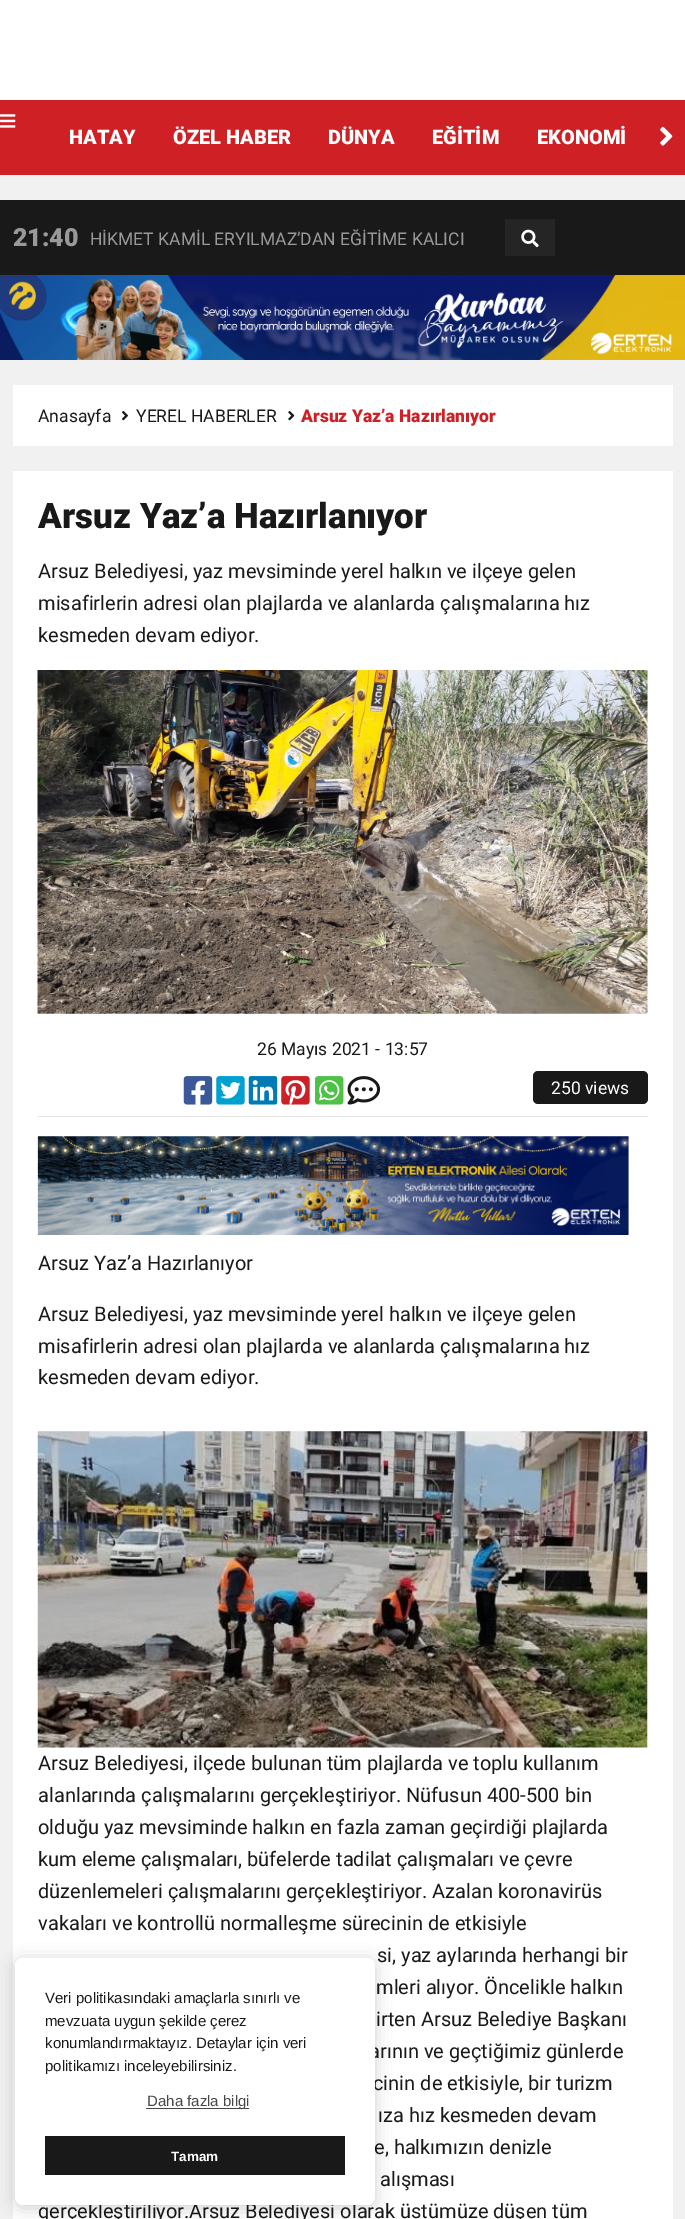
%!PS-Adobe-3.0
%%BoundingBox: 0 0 685 2219
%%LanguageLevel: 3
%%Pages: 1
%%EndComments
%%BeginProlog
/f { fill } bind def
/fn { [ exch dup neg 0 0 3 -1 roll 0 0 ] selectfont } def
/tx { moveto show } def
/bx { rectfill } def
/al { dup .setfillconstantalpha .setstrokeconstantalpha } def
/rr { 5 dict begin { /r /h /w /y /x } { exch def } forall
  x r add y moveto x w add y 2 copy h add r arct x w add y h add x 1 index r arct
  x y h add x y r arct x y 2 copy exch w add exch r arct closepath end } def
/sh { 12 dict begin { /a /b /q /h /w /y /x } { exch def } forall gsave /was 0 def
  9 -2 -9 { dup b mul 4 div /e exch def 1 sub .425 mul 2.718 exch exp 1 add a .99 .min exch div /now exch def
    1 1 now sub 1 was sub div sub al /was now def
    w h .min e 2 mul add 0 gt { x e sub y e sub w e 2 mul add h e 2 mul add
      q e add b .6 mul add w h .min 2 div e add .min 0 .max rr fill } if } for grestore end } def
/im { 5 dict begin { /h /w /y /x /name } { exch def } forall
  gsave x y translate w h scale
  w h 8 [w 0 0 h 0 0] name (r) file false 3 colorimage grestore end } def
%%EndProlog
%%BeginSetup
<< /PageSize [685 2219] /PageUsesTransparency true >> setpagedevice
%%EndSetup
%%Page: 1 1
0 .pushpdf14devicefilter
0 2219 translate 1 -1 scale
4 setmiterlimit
0.945 setgray
0 0 685 2219 bx
1 setgray
0 0 685 100 bx
0.808 0.125 0.145 setrgbcolor
0 100 685 75 bx
(image0.raw) 0 114 16 14 im
/Roboto-Black 20 fn
1 setgray
(HATAY) 69 144 tx
(ÖZEL HABER) 173 144 tx
(DÜNYA) 328 144 tx
(EĞİTİM) 432 144 tx
(EKONOMİ) 537 144 tx
(image1.raw) 660 126 13 20 im
0.098 setgray
0 200 685 75 bx
/Roboto-Black 25 fn
0.6 setgray
(21:40) 13 246 tx
/Roboto-Regular 17.5 fn
(HİKMET KAMİL ERYILMAZ’DAN EĞİTİME KALICI) 90 245 tx
0.145 setgray
505 219 50 37 bx
(image2.raw) 521 229 18 19 im
(image3.raw) 0 275 685 85 im
1 setgray
13 385 660 61 bx
0.098 setgray
(Anasayfa) 38 422 tx
(image4.raw) 122 411 6 10 im
(YEREL HABERLER) 136 422 tx
(image5.raw) 288 411 7 10 im
/Roboto-Black 17.5 fn
0.808 0.125 0.145 setrgbcolor
(Arsuz Yaz’a Hazırlanıyor) 301 422 tx
1 setgray
13 471 660 1748 bx
/Roboto-Black 35 fn
0.098 setgray
(Arsuz Yaz’a Hazırlanıyor) 38 528 tx
/Roboto-Regular 20 fn
(Arsuz Belediyesi, yaz mevsiminde yerel halkın ve ilçeye gelen) 38 578 tx
(misafirlerin adresi olan plajlarda ve alanlarda çalışmalarına hız) 38 610 tx
(kesmeden devam ediyor.) 38 642 tx
(image6.raw) 37 670 611 344 im
0.894 setgray
38 1116 610 1 bx
/Roboto-Regular 17.5 fn
0.098 setgray
(26 Mayıs 2021 - 13:57) 257 1055 tx
(image7.raw) 183 1076 30 29 im
(image8.raw) 216 1076 29 29 im
(image9.raw) 248 1076 30 29 im
(image10.raw) 281 1076 29 29 im
(image11.raw) 315 1076 29 29 im
(image12.raw) 347 1076 34 29 im
533 1071 115 33 5 rr f
1 setgray
(250 views) 551 1094 tx
(image13.raw) 37 1136 592 99 im
/Roboto-Regular 20 fn
0.098 setgray
(Arsuz Yaz’a Hazırlanıyor) 38 1270 tx
(Arsuz Belediyesi, yaz mevsiminde yerel halkın ve ilçeye gelen) 38 1321 tx
(misafirlerin adresi olan plajlarda ve alanlarda çalışmalarına hız) 38 1353 tx
(kesmeden devam ediyor.) 38 1384 tx
(image14.raw) 37 1431 611 317 im
(Arsuz Belediyesi, ilçede bulunan tüm plajlarda ve toplu kullanım) 38 1770 tx
(alanlarında çalışmalarını gerçekleştiriyor. Nüfusun 400-500 bin) 38 1802 tx
(olduğu yaz mevsiminde halkın en fazla zaman geçirdiği plajlarda) 38 1834 tx
(kum eleme çalışmaları, büfelerde tadilat çalışmaları ve çevre) 38 1866 tx
(düzenlemeleri çalışmalarını gerçekleştiriyor. Azalan koronavirüs) 38 1898 tx
(vakaları ve kontrollü normalleşme sürecinin de etkisiyle) 38 1930 tx
(si, yaz aylarında herhangi bir) 377 1962 tx
(mleri alıyor. Öncelikle halkın) 376 1994 tx
(irten Arsuz Belediye Başkanı) 376 2026 tx
(arının ve geçtiğimiz günlerde) 369 2058 tx
(cinin de etkisiyle, bir turizm) 373 2090 tx
(ıza hız kesmeden devam) 378 2122 tx
(e, halkımızın denizle) 374 2154 tx
(alışması) 380 2186 tx
(gerçekleştiriliyor.Arsuz Belediyesi olarak üstümüze düşen tüm) 38 2218 tx
0 setgray
15 1960 360 248 8 8 0.19 sh
1 setgray
15 1958 360 247 8 rr f
/LiberationSans-Regular 15 fn
0.098 setgray
(Veri politikasındaki amaçlarla sınırlı ve) 45 2003 tx
(mevzuata uygun şekilde çerez) 45 2026 tx
(konumlandırmaktayız. Detaylar için veri) 45 2048 tx
(politikamızı inceleyebilirsiniz.) 45 2071 tx
0.278 setgray
146 2108 103 1 bx
(Daha fazla bilgi) 147 2106 tx
0.098 setgray
45 2136 300 39 bx
/LiberationSans-Bold 13.5 fn
1 setgray
(Tamam) 171 2161 tx
.poppdf14devicefilter showpage
%%EOF
